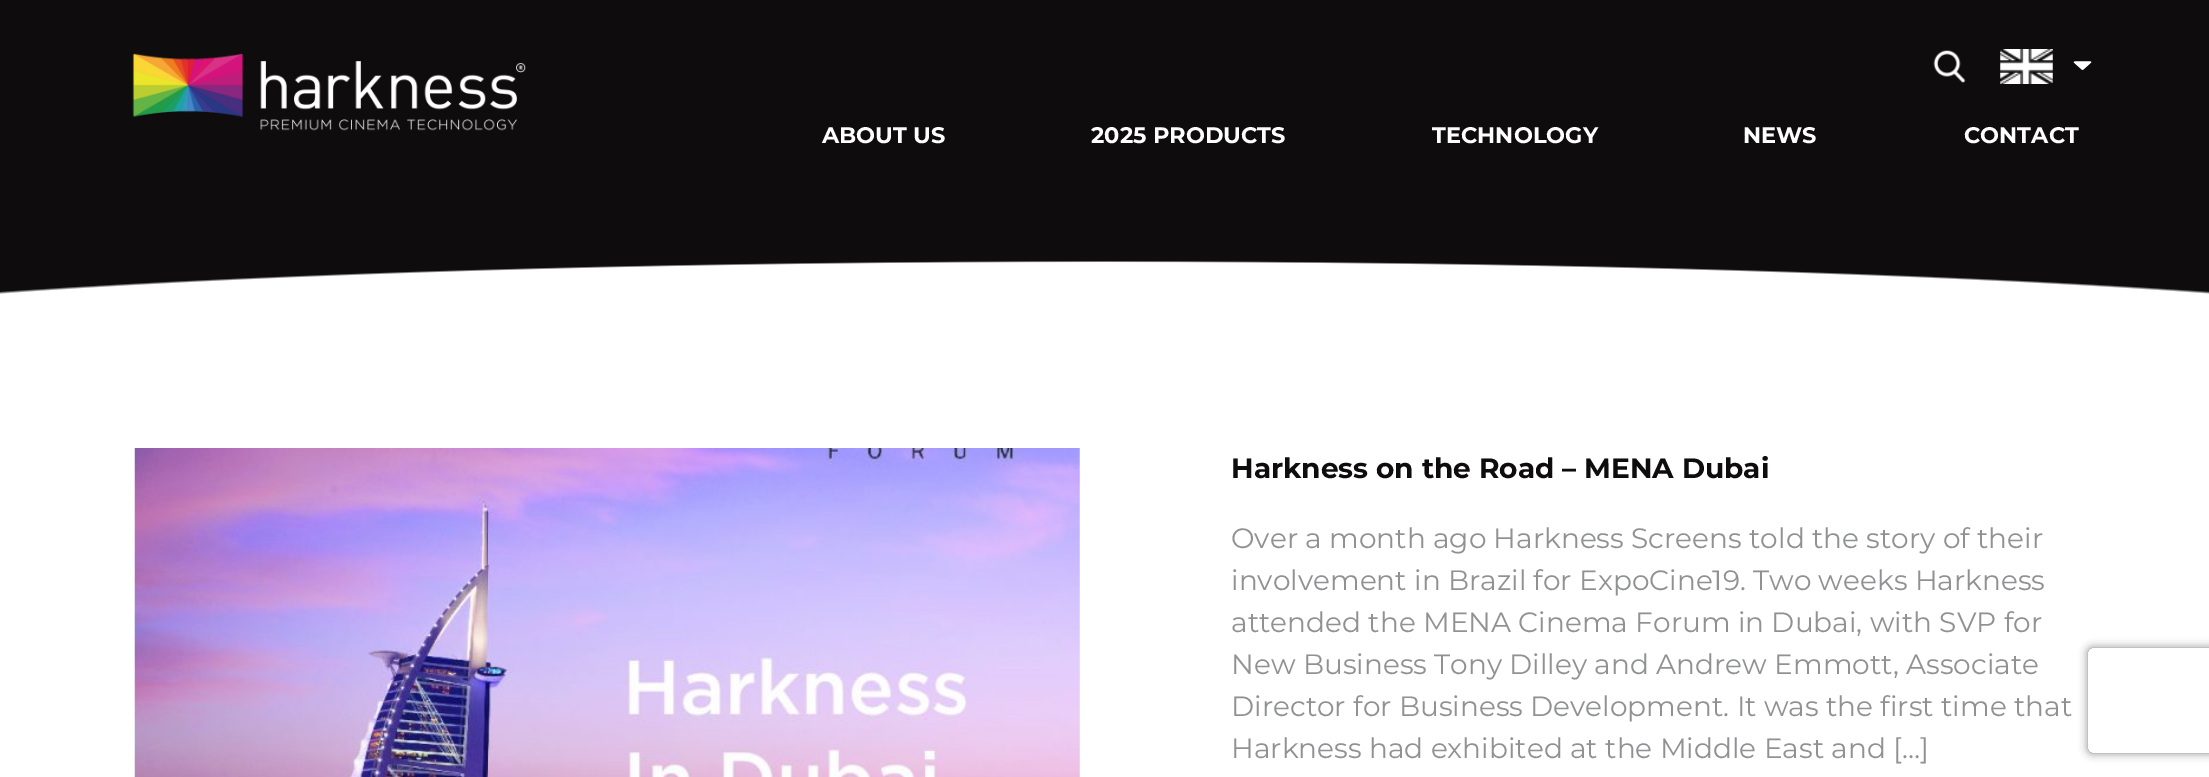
%!PS-Adobe-3.0
%%BoundingBox: 0 0 2209 777
%%LanguageLevel: 3
%%Pages: 1
%%EndComments
%%BeginProlog
/m { moveto } bind def
/l { lineto } bind def
/c { curveto } bind def
/h { closepath } bind def
/q { gsave } bind def
/Q { grestore } bind def
/fn { [ exch dup neg 0 0 3 -1 roll 0 0 ] selectfont } def
/tx { moveto show } def
/bx { rectfill } def
/al { dup .setfillconstantalpha .setstrokeconstantalpha } def
/rr { 5 dict begin { /r /h /w /y /x } { exch def } forall
  x r add y moveto x w add y 2 copy h add r arct x w add y h add x 1 index r arct
  x y h add x y r arct x y 2 copy exch w add exch r arct closepath end } def
/sh { 12 dict begin { /a /b /q /h /w /y /x } { exch def } forall gsave /was 0 def
  9 -2 -9 { dup b mul 4 div /e exch def 1 sub .425 mul 2.718 exch exp 1 add a .99 .min exch div /now exch def
    1 1 now sub 1 was sub div sub al /was now def
    w h .min e 2 mul add 0 gt { x e sub y e sub w e 2 mul add h e 2 mul add
      q e add b .6 mul add w h .min 2 div e add .min 0 .max rr fill } if } for grestore end } def
/im { 5 dict begin { /h /w /y /x /name } { exch def } forall
  gsave x y translate w h scale
  w h 8 [w 0 0 h 0 0] name (r) file false 3 colorimage grestore end } def
%%EndProlog
%%BeginSetup
<< /PageSize [2209 777] /PageUsesTransparency true >> setpagedevice
%%EndSetup
%%Page: 1 1
0 .pushpdf14devicefilter
0 777 translate 1 -1 scale
4 setmiterlimit
1 setgray
0 0 2209 777 bx
q 0 0 m 2209 0 l 2209 295 l 0 295 l h clip newpath 1105 350 translate 2873 175 scale
<< /ShadingType 3 /ColorSpace /DeviceRGB /Coords [0 0 0 0 0 1] /Extend [true true] /Function << /FunctionType 3 /Domain [0 1] /Functions [<< /FunctionType 2 /Domain [0 1] /C0 [1 1 1] /C1 [1 1 1] /N 1 >> << /FunctionType 2 /Domain [0 1] /C0 [1 1 1] /C1 [0.055 0.047 0.047] /N 1 >> << /FunctionType 2 /Domain [0 1] /C0 [0.055 0.047 0.047] /C1 [0.055 0.047 0.047] /N 1 >>] /Bounds [0.5 0.51] /Encode [0 1 0 1 0 1] >> >> shfill Q
(image0.raw) 132 53 394 78 im
(image1.raw) 1933 50 33 33 im
(image2.raw) 2000 49 53 35 im
(image3.raw) 2073 61 19 9 im
/Montserrat-Bold 22.5 fn
(ABOUT US) 822 143 tx
(2025 PRODUCTS) 1091 143 tx
(TECHNOLOGY) 1432 143 tx
(NEWS) 1743 143 tx
(CONTACT) 1964 143 tx
(image4.raw) 134 448 946 329 im
/Montserrat-Bold 28 fn
0.055 0.047 0.047 setrgbcolor
(Harkness on the Road – MENA Dubai) 1231 478 tx
/Montserrat-Regular 28 fn
0.565 0.569 0.576 setrgbcolor
(Over a month ago Harkness Screens told the story of their) 1231 548 tx
(involvement in Brazil for ExpoCine19. Two weeks Harkness) 1231 590 tx
(attended the MENA Cinema Forum in Dubai, with SVP for) 1231 632 tx
(New Business Tony Dilley and Andrew Emmott, Associate) 1231 674 tx
(Director for Business Development. It was the first time that) 1231 716 tx
(Harkness had exhibited at the Middle East and […]) 1231 758 tx
q
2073 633 m 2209 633 l 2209 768 l 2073 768 l h 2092 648 m 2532 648 l 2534 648 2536 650 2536 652 c 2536 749 l 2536 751 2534 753 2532 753 c 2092 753 l 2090 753 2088 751 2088 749 c 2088 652 l 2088 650 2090 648 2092 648 c h eoclip newpath
0.502 setgray
2088 648 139 105 4 4.5 1 sh
Q
.poppdf14devicefilter showpage
%%EOF
